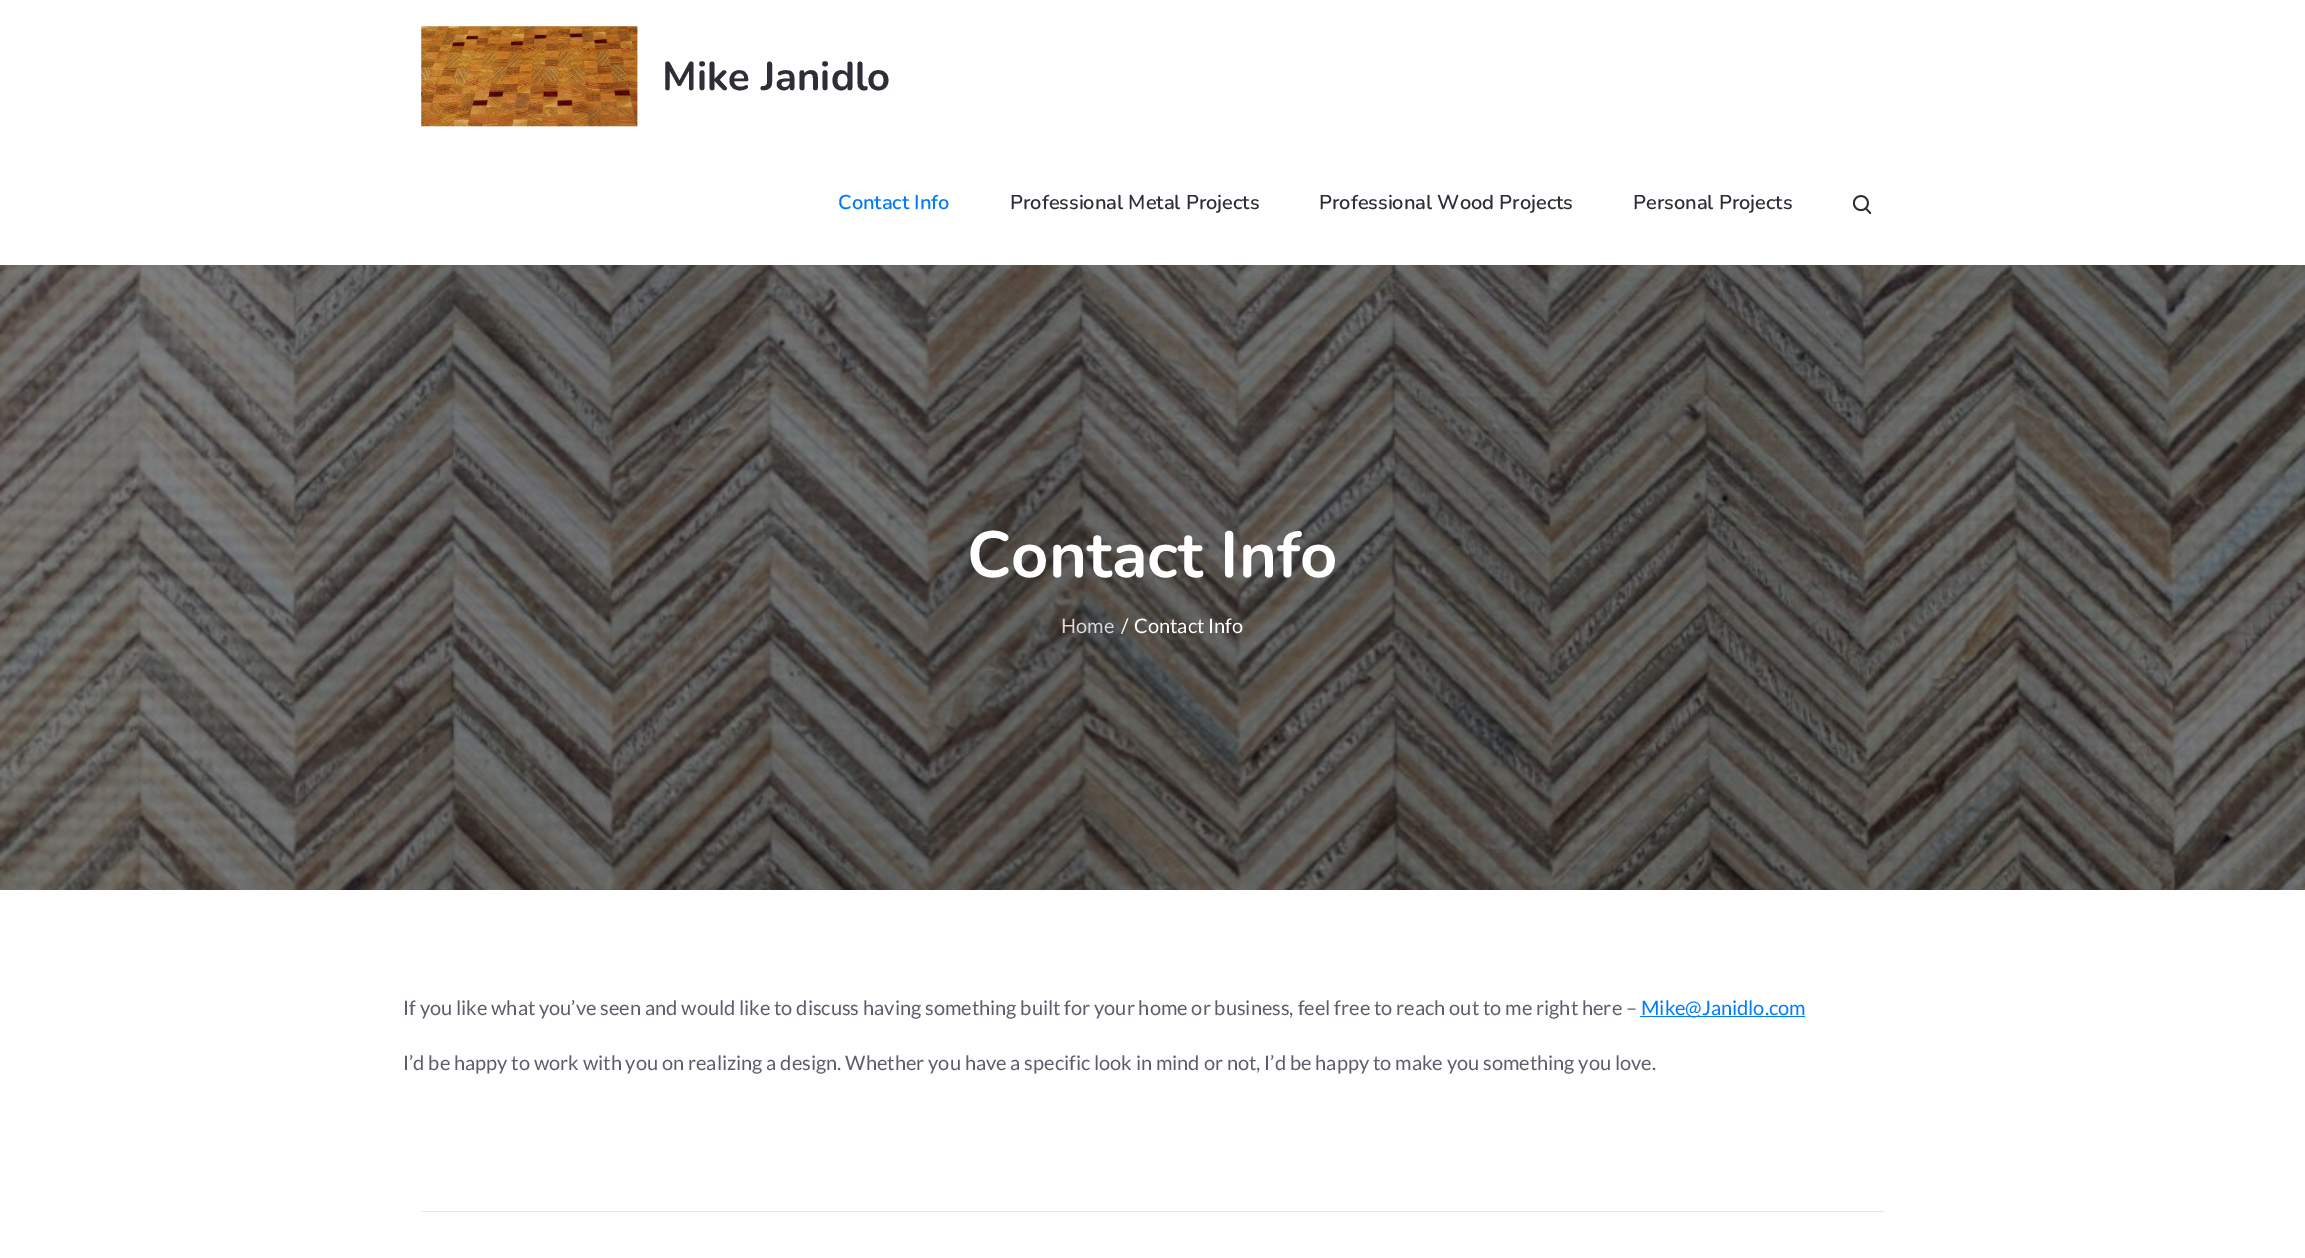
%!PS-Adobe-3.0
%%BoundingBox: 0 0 2305 1258
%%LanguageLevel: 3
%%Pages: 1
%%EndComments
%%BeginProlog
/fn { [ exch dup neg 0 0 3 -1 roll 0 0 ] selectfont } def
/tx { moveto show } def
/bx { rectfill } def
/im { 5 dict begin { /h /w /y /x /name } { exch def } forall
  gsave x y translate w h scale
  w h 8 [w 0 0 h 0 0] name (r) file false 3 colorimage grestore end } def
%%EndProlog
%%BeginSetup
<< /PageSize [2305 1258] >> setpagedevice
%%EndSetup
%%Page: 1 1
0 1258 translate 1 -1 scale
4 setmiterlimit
1 setgray
0 0 2305 1258 bx
(image0.raw) 421 26 217 101 im
/Nunito-Bold 40 fn
0.18 0.18 0.212 setrgbcolor
(Mike Janidlo) 662 90 tx
/Nunito-SemiBold 20 fn
0 0.478 1 setrgbcolor
(Contact Info) 838 209 tx
0.18 0.18 0.212 setrgbcolor
(Professional Metal Projects) 1010 209 tx
(Professional Wood Projects) 1319 209 tx
(Personal Projects) 1633 209 tx
(image1.raw) 1853 195 18 19 im
(image2.raw) 0 265 2305 625 im
/Nunito-Bold 65 fn
1 setgray
(Contact Info) 967 577 tx
/Lato-Regular 20 fn
0.851 setgray
(Home) 1061 633 tx
1 setgray
(/) 1121 633 tx
(Contact Info) 1134 633 tx
0.361 0.373 0.42 setrgbcolor
(If you like what you’ve seen and would like to discuss having something built for your home or business, feel free to reach out to me right here –) 403 1015 tx
0 0.478 1 setrgbcolor
1640 1016 165 1 bx
(Mike@Janidlo.com) 1641 1015 tx
0.361 0.373 0.42 setrgbcolor
(I’d be happy to work with you on realizing a design. Whether you have a specific look in mind or not, I’d be happy to make you something you love.) 403 1070 tx
0.886 0.914 0.941 setrgbcolor
421 1211 1463 1 bx
showpage
%%EOF
